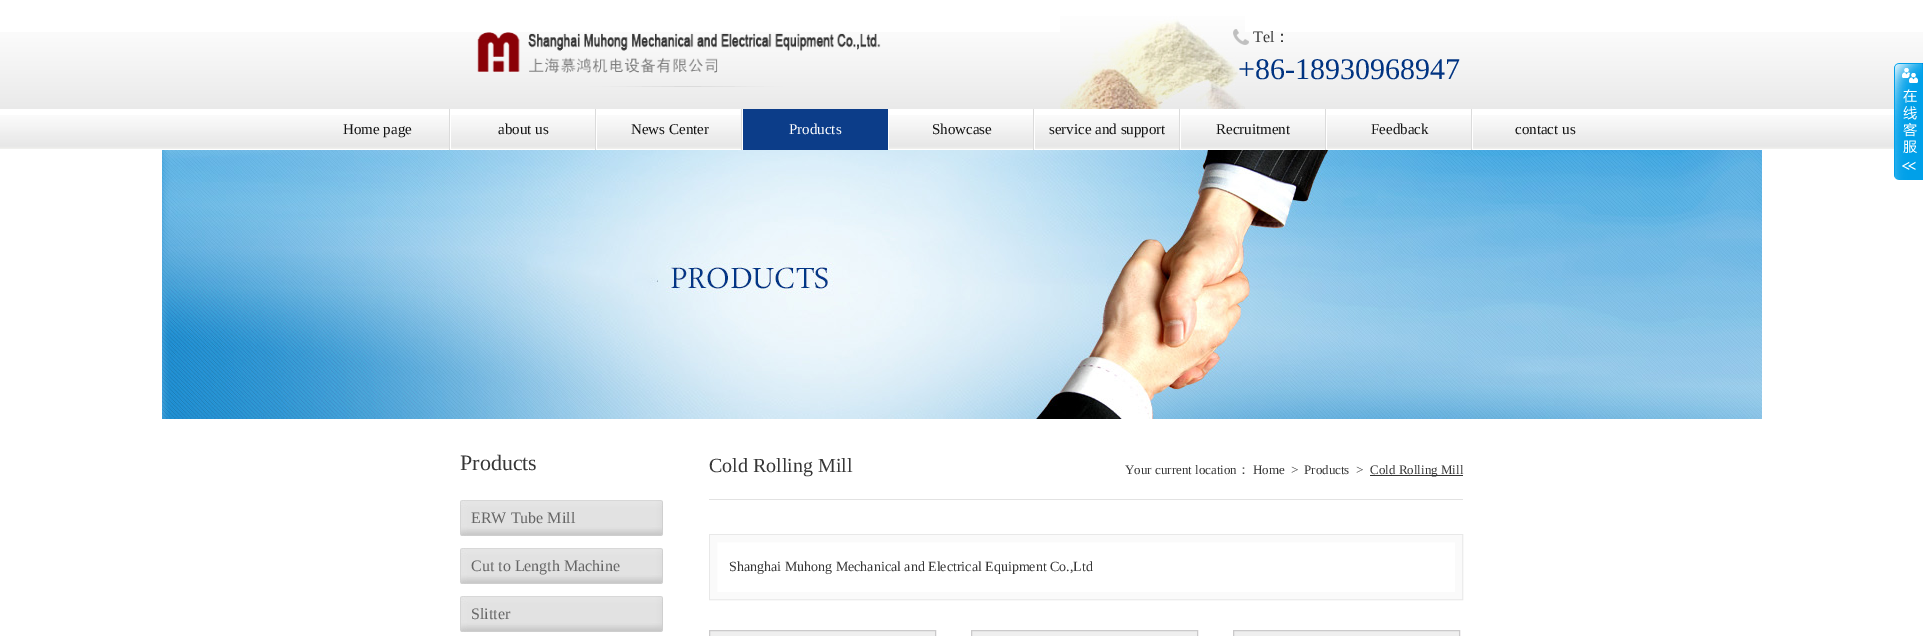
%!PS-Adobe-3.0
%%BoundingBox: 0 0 1923 636
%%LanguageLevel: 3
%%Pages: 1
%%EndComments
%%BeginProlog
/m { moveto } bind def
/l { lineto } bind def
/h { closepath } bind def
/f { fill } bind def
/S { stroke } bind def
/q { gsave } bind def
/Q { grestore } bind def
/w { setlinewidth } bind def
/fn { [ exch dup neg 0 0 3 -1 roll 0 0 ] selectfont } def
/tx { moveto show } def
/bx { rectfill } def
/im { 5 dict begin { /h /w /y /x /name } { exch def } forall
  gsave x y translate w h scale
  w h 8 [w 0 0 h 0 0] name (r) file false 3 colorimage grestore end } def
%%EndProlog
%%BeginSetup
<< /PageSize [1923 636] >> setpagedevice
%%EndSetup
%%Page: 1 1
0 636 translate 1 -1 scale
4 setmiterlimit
1 setgray
0 0 1923 636 bx
(image0.raw) 0 32 1923 77 im
(image1.raw) 1060 16 185 93 im
(image2.raw) 477 32 404 55 im
(image3.raw) 1233 29 16 16 im
/LiberationSerif-Regular 16 fn
0.216 setgray
(Tel) 1253 42 tx
/WenQuanYiZenHei-Medium 16 fn
(：) 1274 42 tx
/LiberationSerif-Regular 30 fn
0 0.2 0.506 setrgbcolor
(+86-18930968947) 1238 79 tx
(image4.raw) 0 115 1894 34 im
(image5.raw) 449 109 2 41 im
/LiberationSerif-Regular 15 fn
0.078 setgray
(Home page) 343 134 tx
(image5.raw) 595 109 2 41 im
(about us) 498 134 tx
(image5.raw) 741 109 2 41 im
(News Center) 631 134 tx
(image6.raw) 888 109 1 41 im
0.047 0.239 0.537 setrgbcolor
743 109 145 41 bx
1 setgray
(Products) 789 134 tx
(image5.raw) 1033 109 2 41 im
0.078 setgray
(Showcase) 932 134 tx
(image5.raw) 1179 109 2 41 im
(service and support) 1049 134 tx
(image5.raw) 1325 109 2 41 im
(Recruitment) 1216 134 tx
(image5.raw) 1471 109 2 41 im
(Feedback) 1371 134 tx
(contact us) 1515 134 tx
(image7.raw) 1894 63 29 117 im
(image8.raw) 162 150 1600 269 im
/LiberationSerif-Regular 22 fn
0.216 setgray
(Products) 460 470 tx
(image9.raw) 460 500 203 36 im
/LiberationSerif-Regular 16 fn
0.4 setgray
(ERW Tube Mill) 471 523 tx
(image9.raw) 460 548 203 36 im
(Cut to Length Machine) 471 571 tx
(image9.raw) 460 596 203 36 im
(Slitter) 471 619 tx
0.886 setgray
709 499 754 1 bx
/LiberationSerif-Regular 20 fn
0.216 setgray
(Cold Rolling Mill) 709 472 tx
/LiberationSerif-Regular 13 fn
(Your current location) 1125 474 tx
/WenQuanYiZenHei-Medium 13 fn
(：) 1237 474 tx
/LiberationSerif-Regular 13 fn
(Home) 1253 474 tx
(>) 1291 474 tx
(Products) 1304 474 tx
(>) 1356 474 tx
0.2 setgray
1370 475 93 1 bx
0.216 setgray
(Cold Rolling Mill) 1370 474 tx
0.91 setgray
709.5 534.5 753 65 rectstroke
0.98 setgray
7 w
713.5 538.5 745 57 rectstroke
/LiberationSerif-Regular 14 fn
0.216 setgray
(Shanghai Muhong Mechanical and Electrical Equipment Co.,Ltd) 729 571 tx
0.937 setgray
709.5 630.5 m 935.5 630.5 l 935.5 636.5 l 709.5 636.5 l h q f Q
0.796 0.792 0.796 setrgbcolor
1 w
S
0.937 setgray
971.5 630.5 m 1197.5 630.5 l 1197.5 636.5 l 971.5 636.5 l h q f Q
0.796 0.792 0.796 setrgbcolor
S
0.937 setgray
1233.5 630.5 m 1459.5 630.5 l 1459.5 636.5 l 1233.5 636.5 l h q f Q
0.796 0.792 0.796 setrgbcolor
S
showpage
%%EOF
